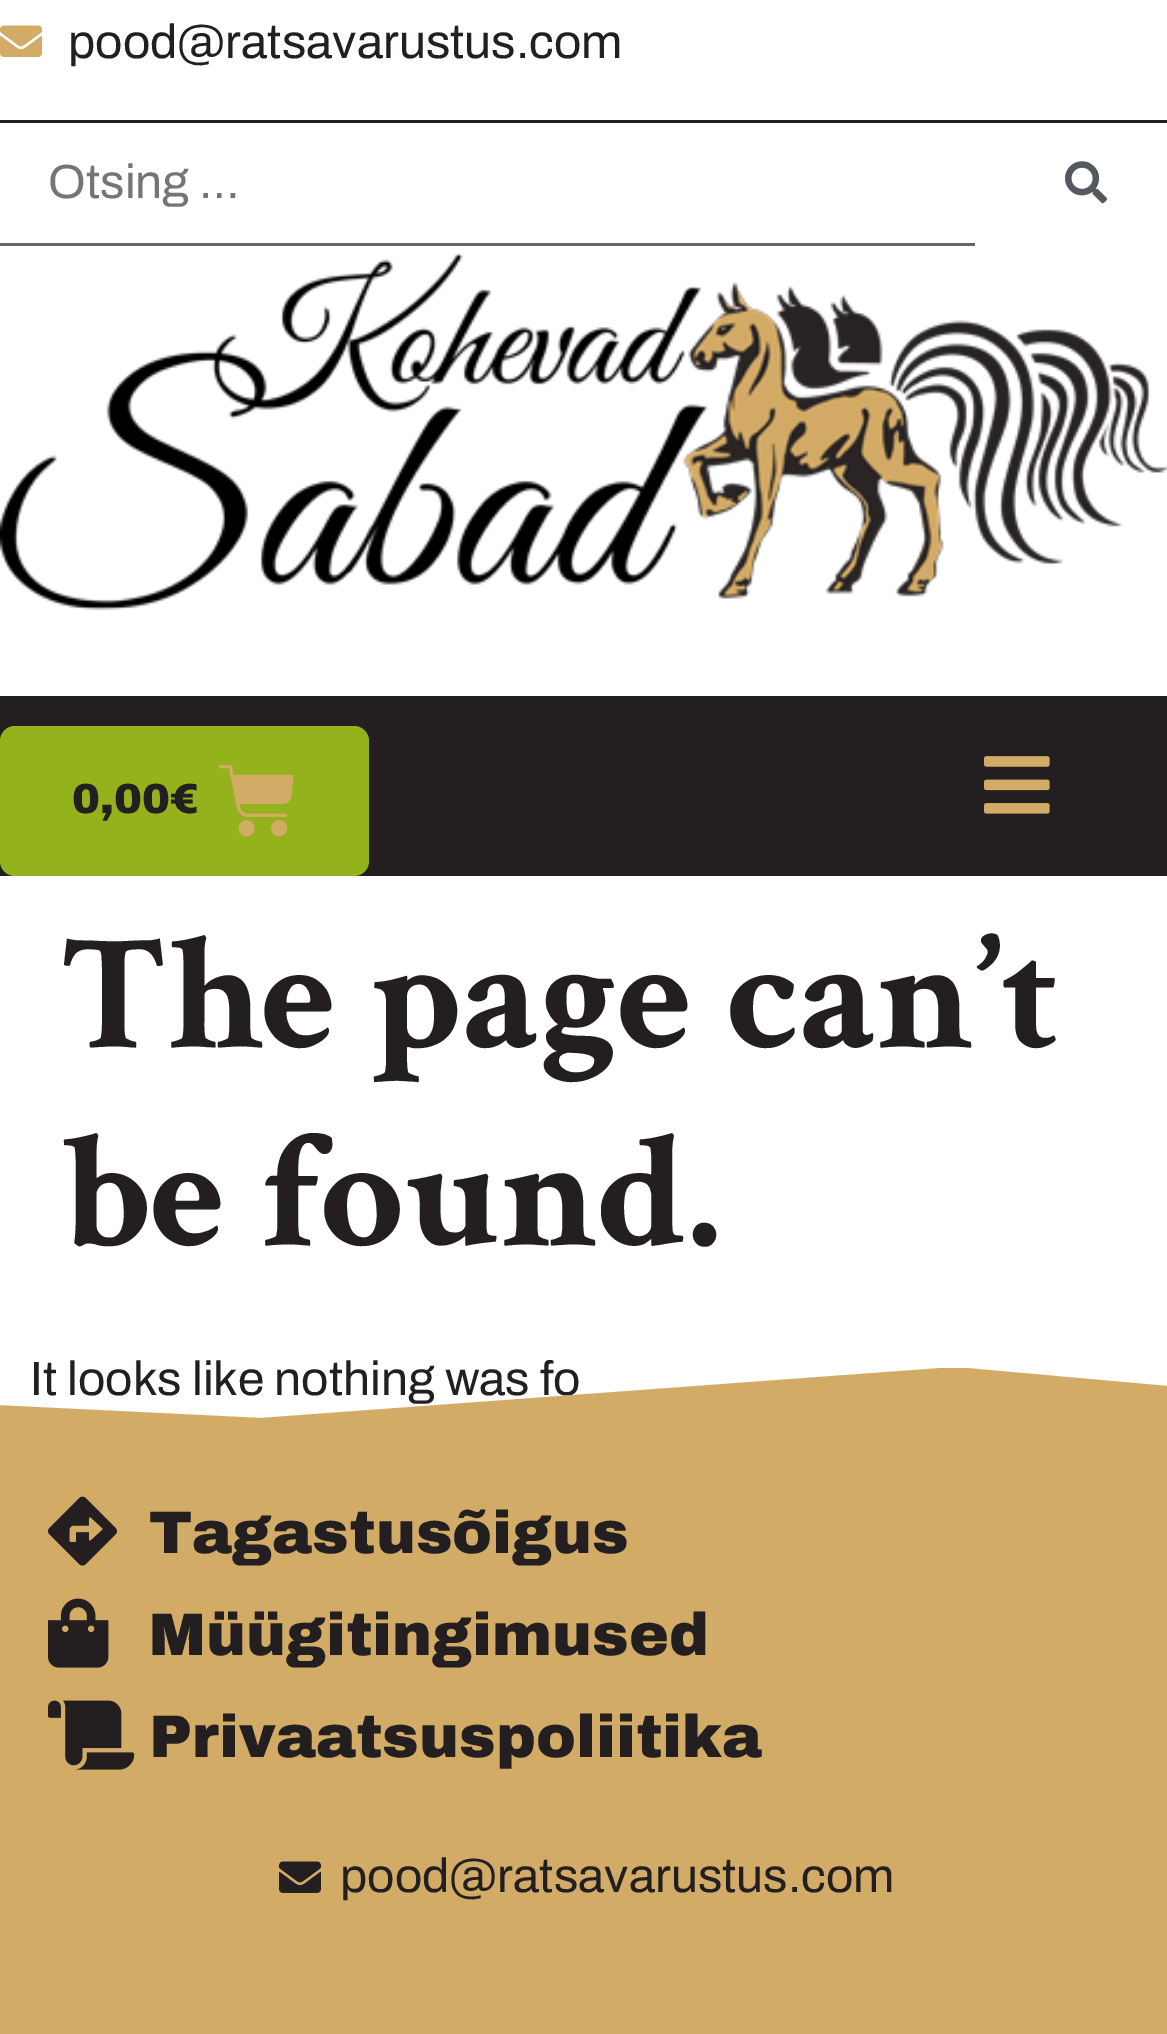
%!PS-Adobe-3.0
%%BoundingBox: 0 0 1167 2034
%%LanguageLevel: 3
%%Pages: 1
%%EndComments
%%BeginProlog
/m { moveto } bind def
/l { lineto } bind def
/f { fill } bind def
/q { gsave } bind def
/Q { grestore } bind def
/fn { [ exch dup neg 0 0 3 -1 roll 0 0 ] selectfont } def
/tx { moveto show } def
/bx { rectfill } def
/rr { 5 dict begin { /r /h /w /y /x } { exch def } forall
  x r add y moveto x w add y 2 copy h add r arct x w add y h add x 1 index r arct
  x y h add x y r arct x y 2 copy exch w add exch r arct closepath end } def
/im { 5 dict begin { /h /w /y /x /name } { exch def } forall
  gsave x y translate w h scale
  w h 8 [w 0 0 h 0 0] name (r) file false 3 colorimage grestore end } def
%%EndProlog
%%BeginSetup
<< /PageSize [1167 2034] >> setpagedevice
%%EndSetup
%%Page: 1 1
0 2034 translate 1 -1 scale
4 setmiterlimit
1 setgray
0 0 1167 2034 bx
0.137 0.122 0.125 setrgbcolor
0 120 1167 3 bx
(image0.raw) 0 25 42 32 im
/Archivo-Regular 48 fn
(pood@ratsavarustus.com) 68 58 tx
0.4 setgray
0 243 975 3 bx
0.459 setgray
(Otsing …) 48 198 tx
(image1.raw) 1065 161 42 43 im
(image2.raw) 0 252 1167 359 im
0.137 0.122 0.125 setrgbcolor
0 696 1167 180 bx
0.58 0.698 0.106 setrgbcolor
0 726 369 150 15 rr f
/ArchivoBlack-Black 42 fn
0.137 0.122 0.125 setrgbcolor
(0,00€) 72 813 tx
(image3.raw) 219 765 75 72 im
(image4.raw) 984 756 66 58 im
/CrimsonText-Bold 165 fn
(The page can’t) 60 1047 tx
(be found.) 60 1245 tx
/Archivo-Regular 48 fn
(It looks like nothing was fo) 30 1395 tx
q
0 1368 1167 72 rectclip
0.824 0.671 0.404 setrgbcolor
-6 1405 m 261 1418 l 955 1367 l 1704 1434 l 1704 1437 l -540 1437 l -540 1434 l f
Q
0.824 0.671 0.404 setrgbcolor
0 1437 1167 597 bx
(image5.raw) 48 1496 69 70 im
/ArchivoBlack-Black 60 fn
0.137 0.122 0.125 setrgbcolor
(Tagastusõigus) 149 1553 tx
(image6.raw) 48 1598 61 70 im
(Müügitingimused) 149 1655 tx
(image7.raw) 48 1700 87 70 im
(Privaatsuspoliitika) 149 1757 tx
(image8.raw) 279 1861 42 32 im
/Archivo-Regular 48 fn
(pood@ratsavarustus.com) 340 1892 tx
showpage
%%EOF
